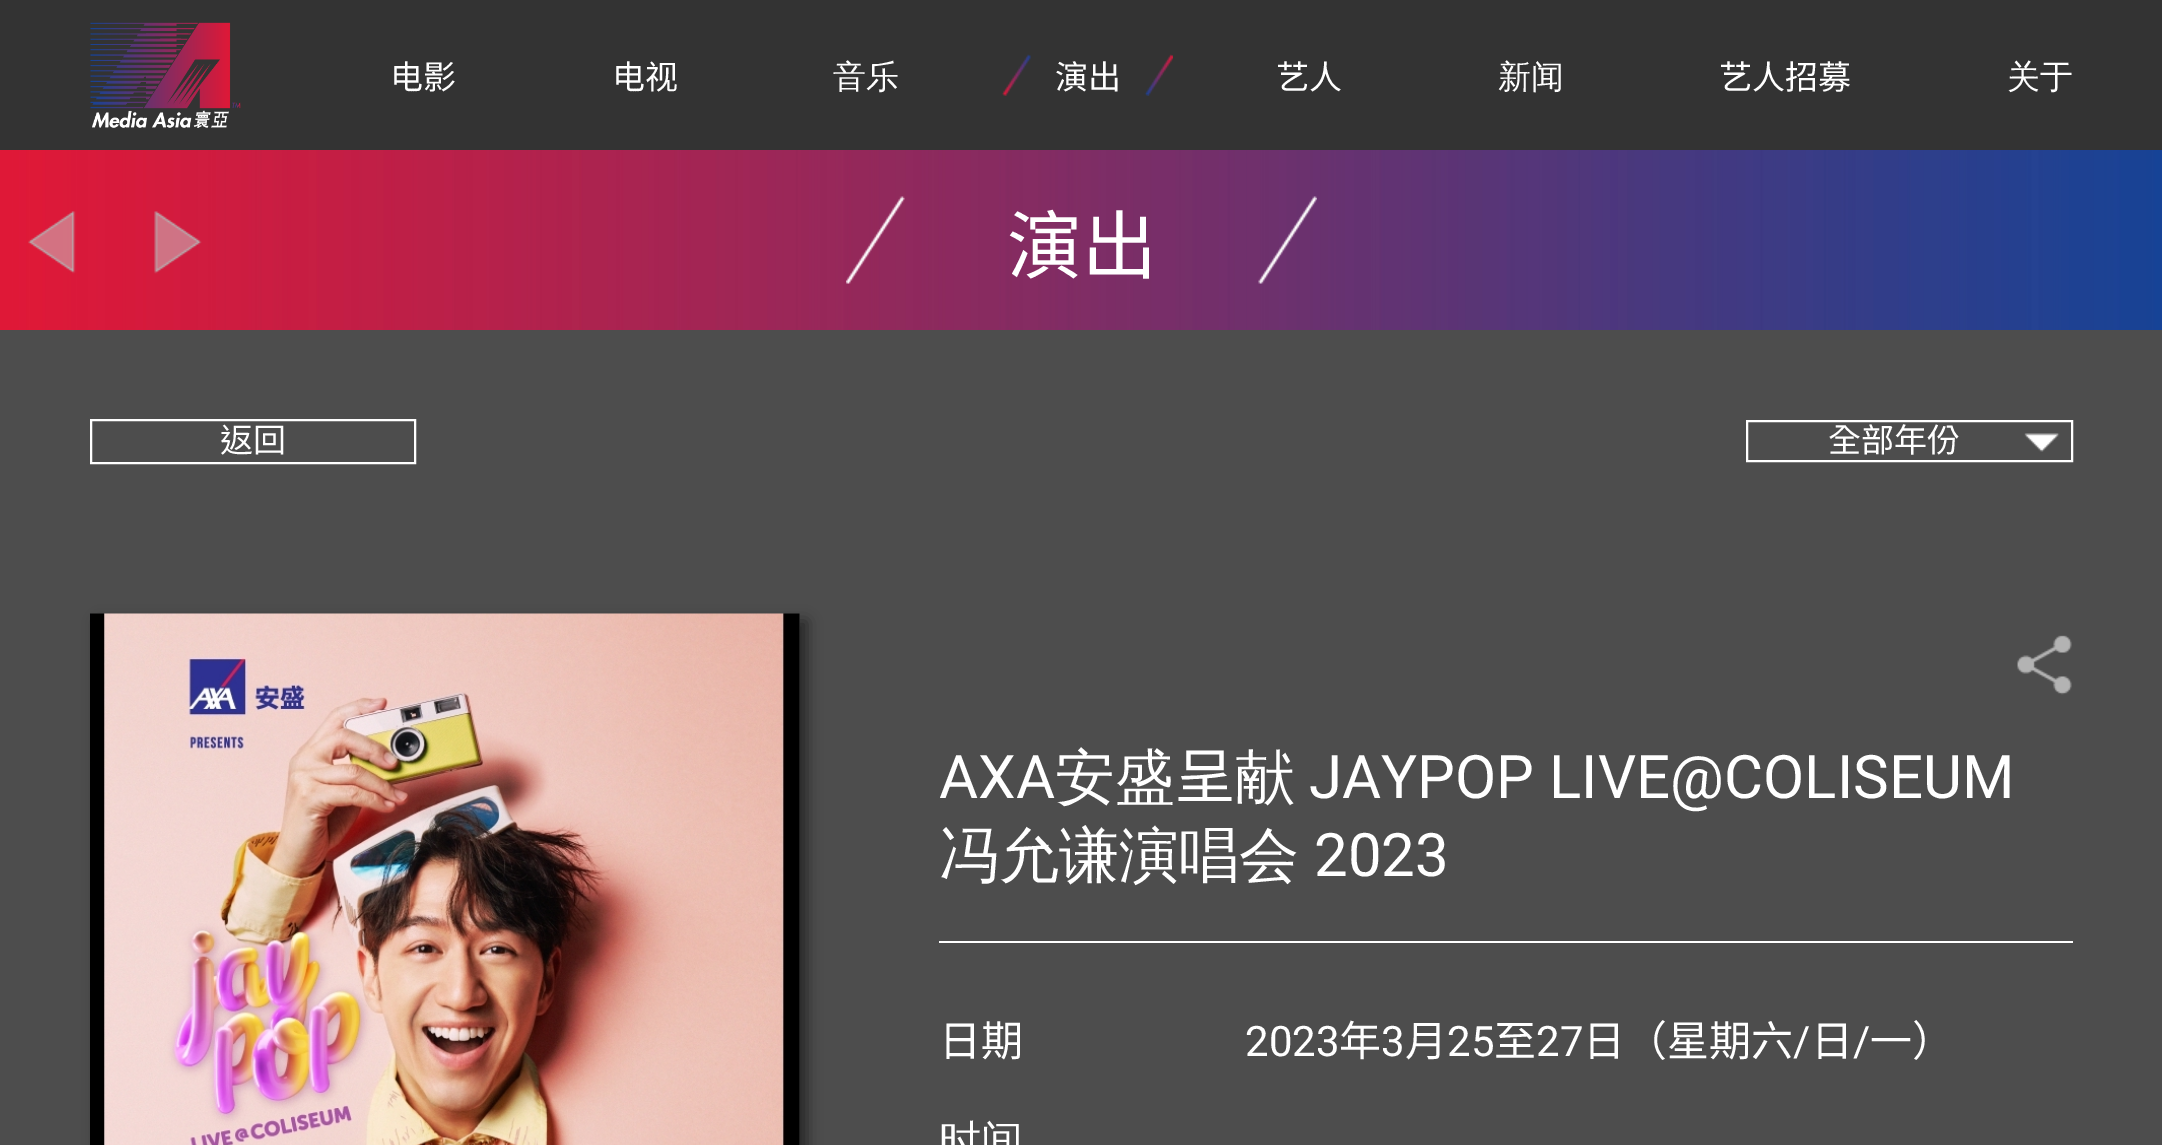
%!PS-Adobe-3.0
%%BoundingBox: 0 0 2162 1145
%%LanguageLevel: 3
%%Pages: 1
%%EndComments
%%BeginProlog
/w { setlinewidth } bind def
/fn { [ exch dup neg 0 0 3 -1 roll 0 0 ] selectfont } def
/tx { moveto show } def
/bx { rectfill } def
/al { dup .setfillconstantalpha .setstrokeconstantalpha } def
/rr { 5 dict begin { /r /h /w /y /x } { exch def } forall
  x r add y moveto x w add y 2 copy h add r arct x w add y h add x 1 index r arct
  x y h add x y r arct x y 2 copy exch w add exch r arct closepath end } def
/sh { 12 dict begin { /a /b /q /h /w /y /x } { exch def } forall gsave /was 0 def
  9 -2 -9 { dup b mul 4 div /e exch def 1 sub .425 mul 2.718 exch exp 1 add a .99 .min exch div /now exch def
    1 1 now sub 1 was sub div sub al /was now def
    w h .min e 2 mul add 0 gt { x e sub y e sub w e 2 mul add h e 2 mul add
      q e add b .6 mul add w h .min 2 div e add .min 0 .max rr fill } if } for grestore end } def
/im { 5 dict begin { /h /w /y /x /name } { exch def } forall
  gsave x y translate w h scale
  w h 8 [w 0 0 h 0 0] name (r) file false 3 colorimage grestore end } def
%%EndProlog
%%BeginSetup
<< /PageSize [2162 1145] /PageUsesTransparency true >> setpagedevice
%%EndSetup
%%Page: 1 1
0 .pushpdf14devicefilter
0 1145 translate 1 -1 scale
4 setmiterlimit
0.2 setgray
0 0 2162 1145 bx
(image0.raw) 90 22 151 106 im
/NotoSansTC-Regular 33 fn
1 setgray
(电影) 390 89 tx
(电视) 612 89 tx
/WenQuanYiZenHei-Medium 33 fn
(音乐) 833 88 tx
(image1.raw) 1002 54 29 42 im
/NotoSansTC-Regular 33 fn
(演出) 1055 89 tx
(image2.raw) 1144 54 29 42 im
(艺人) 1276 89 tx
/WenQuanYiZenHei-Medium 33 fn
(新闻) 1498 88 tx
/NotoSansTC-Regular 33 fn
(艺人招募) 1719 89 tx
/WenQuanYiZenHei-Medium 33 fn
(关于) 2007 88 tx
(image3.raw) 0 150 2162 180 im
(image4.raw) 28 211 48 63 im
(image5.raw) 154 211 48 63 im
(image6.raw) 846 196 59 88 im
/NotoSansTC-Regular 75 fn
(演出) 1007 273 tx
(image7.raw) 1258 196 59 88 im
0.302 setgray
0 330 2162 815 bx
1 setgray
2 w
91 420 324 43 rectstroke
/NotoSansTC-Regular 33 fn
(返回) 220 452 tx
(image8.raw) 2024 433 36 19 im
1747 421 325 40 rectstroke
(全部年份) 1828 452 tx
0 setgray
98 621 709 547 0 7.5 0.5 sh
(image9.raw) 90 613 710 532 im
1 setgray
939 941 1134 2 bx
(image10.raw) 2017 635 55 60 im
/Roboto-Regular 60 fn
(AXA) 939 798 tx
/WenQuanYiZenHei-Medium 60 fn
(安盛) 1055 798 tx
/NotoSansTC-Regular 60 fn
(呈) 1175 798 tx
/WenQuanYiZenHei-Medium 60 fn
(献) 1235 798 tx
/Roboto-Regular 60 fn
(JAYPOP LIVE@COLISEUM) 1309 798 tx
/WenQuanYiZenHei-Medium 60 fn
(冯允谦演唱会) 939 876 tx
/Roboto-Regular 60 fn
(2023) 1314 876 tx
/NotoSansTC-Regular 42 fn
(日期) 939 1056 tx
/Roboto-Regular 42 fn
(2023) 1245 1056 tx
/NotoSansTC-Regular 42 fn
(年) 1339 1056 tx
/Roboto-Regular 42 fn
(3) 1381 1056 tx
/NotoSansTC-Regular 42 fn
(月) 1405 1056 tx
/Roboto-Regular 42 fn
(25) 1447 1056 tx
/NotoSansTC-Regular 42 fn
(至) 1494 1056 tx
/Roboto-Regular 42 fn
(27) 1536 1056 tx
/NotoSansTC-Regular 42 fn
(日（星期六) 1583 1056 tx
/Roboto-Regular 42 fn
(/) 1793 1056 tx
/NotoSansTC-Regular 42 fn
(日) 1811 1056 tx
/Roboto-Regular 42 fn
(/) 1853 1056 tx
/NotoSansTC-Regular 42 fn
(一）) 1870 1056 tx
/WenQuanYiZenHei-Medium 42 fn
(时间) 939 1155 tx
.poppdf14devicefilter showpage
%%EOF
